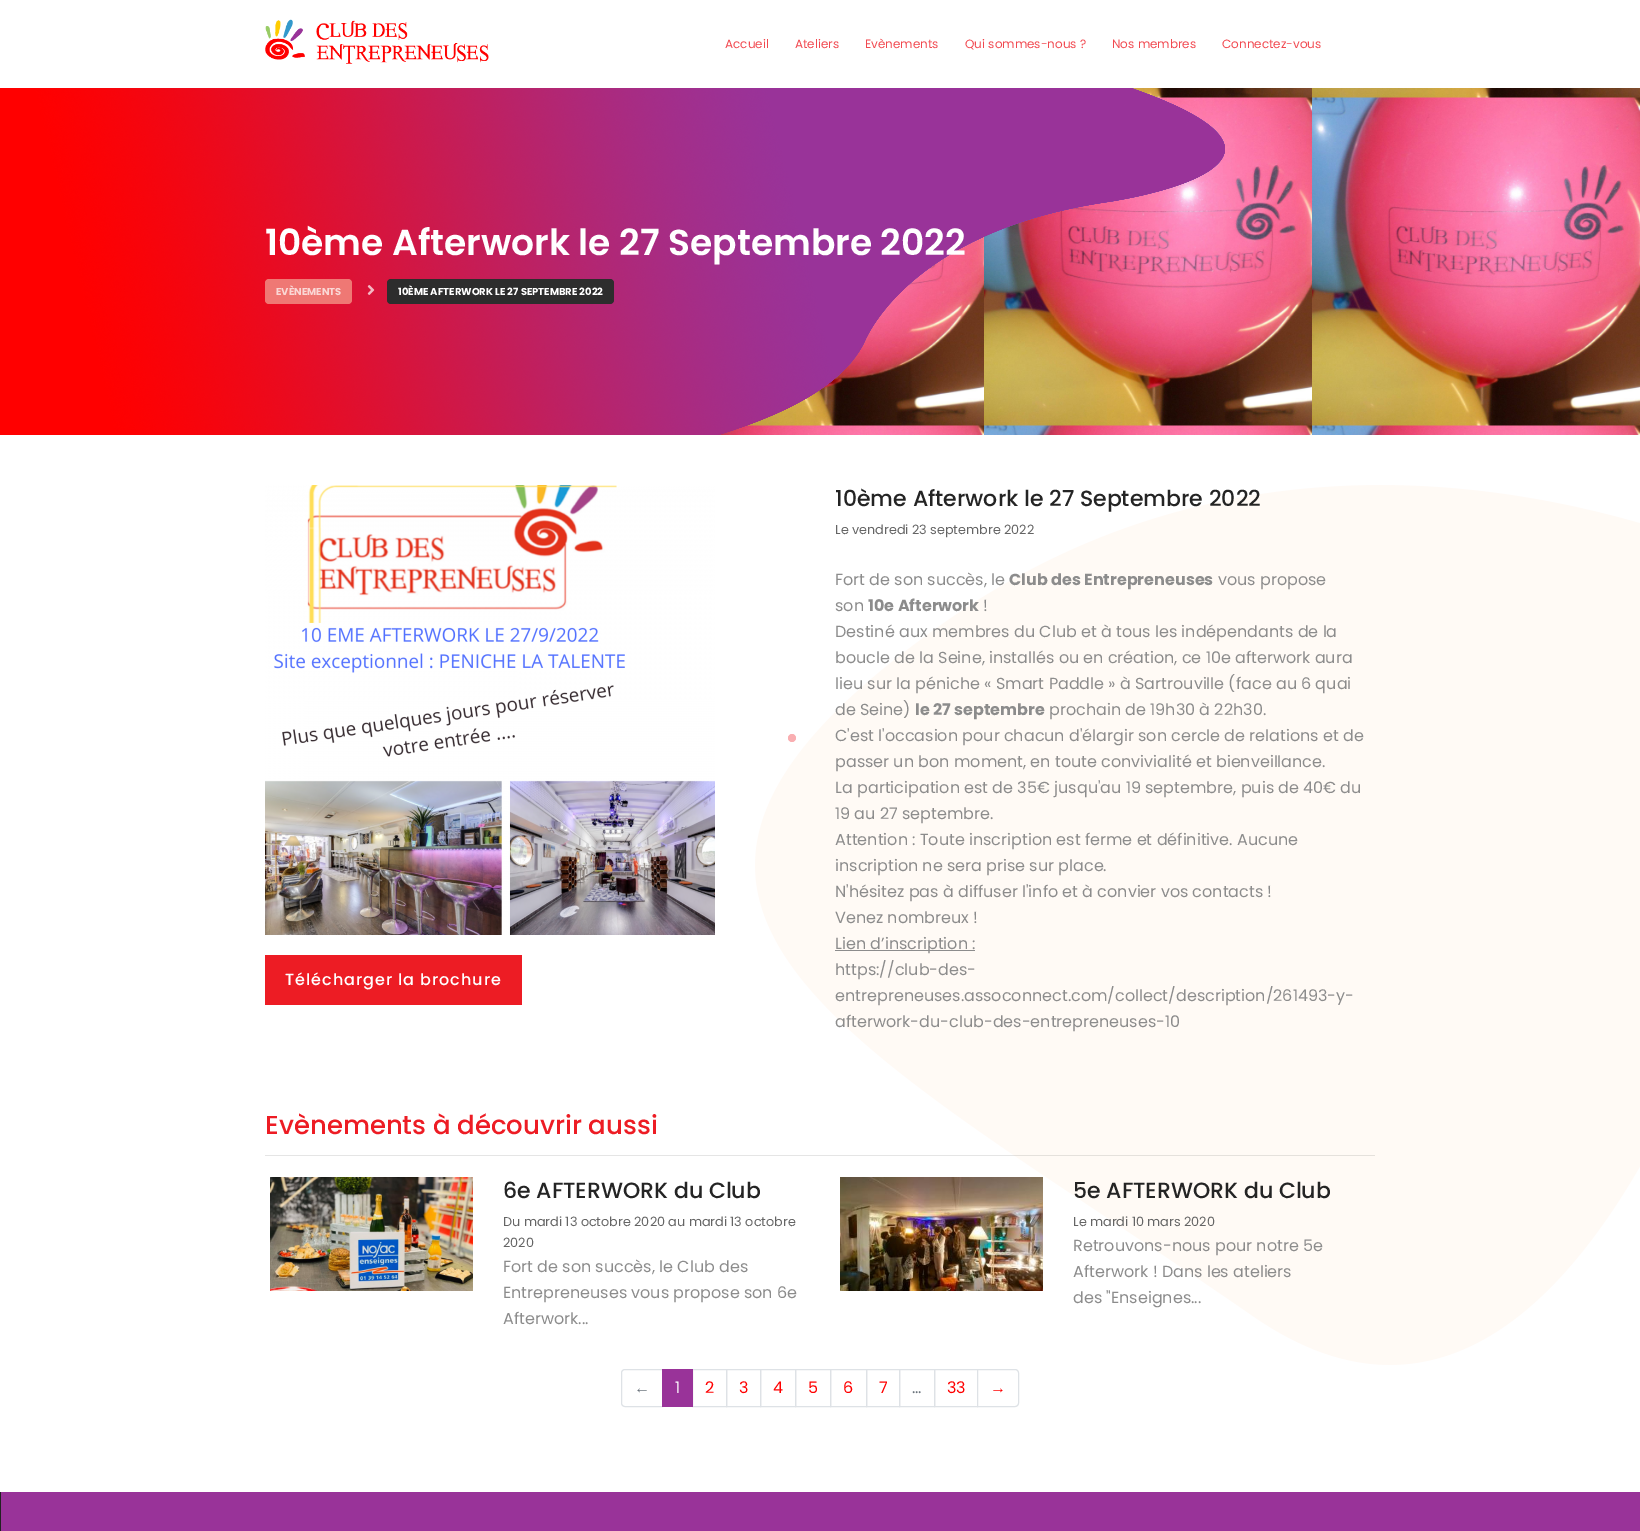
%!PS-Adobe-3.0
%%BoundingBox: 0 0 1640 1531
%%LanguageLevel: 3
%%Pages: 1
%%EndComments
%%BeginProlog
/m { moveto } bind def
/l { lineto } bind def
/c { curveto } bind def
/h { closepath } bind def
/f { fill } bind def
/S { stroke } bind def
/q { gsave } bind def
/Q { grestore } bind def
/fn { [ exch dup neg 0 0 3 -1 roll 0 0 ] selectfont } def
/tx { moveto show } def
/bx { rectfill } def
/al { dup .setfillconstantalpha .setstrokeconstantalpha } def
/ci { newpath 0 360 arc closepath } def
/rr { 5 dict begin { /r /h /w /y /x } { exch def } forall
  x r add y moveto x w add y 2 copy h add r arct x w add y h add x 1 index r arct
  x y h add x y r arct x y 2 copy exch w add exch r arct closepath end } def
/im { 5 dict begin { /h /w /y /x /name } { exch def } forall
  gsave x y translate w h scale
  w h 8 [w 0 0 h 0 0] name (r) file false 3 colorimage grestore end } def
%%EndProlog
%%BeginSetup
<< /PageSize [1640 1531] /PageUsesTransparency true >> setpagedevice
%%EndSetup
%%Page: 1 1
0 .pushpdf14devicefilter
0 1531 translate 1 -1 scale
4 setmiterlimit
1 setgray
0 0 1640 1531 bx
(image0.raw) 265 19 224 45 im
/Poppins-Regular 12 fn
0.945 0.286 0.314 setrgbcolor
(Accueil) 725 48 tx
(Ateliers) 795 48 tx
(Evènements) 865 48 tx
(Qui sommes-nous ?) 965 48 tx
(Nos membres) 1112 48 tx
(Connectez-vous) 1222 48 tx
(image1.raw) 720 88 920 347 im
(image2.raw) 0 88 1225 347 im
/Poppins-SemiBold 36 fn
1 setgray
(10ème Afterwork le 27 Septembre 2022) 265 255 tx
0.937 0.471 0.455 setrgbcolor
265 279 87 25 4 rr f
/Poppins-Bold 10 fn
0.98 0.843 0.835 setrgbcolor
(EVÈNEMENTS) 276 295 tx
(image3.raw) 367 285 8 10 im
0.176 setgray
387 279 227 25 4 rr f
1 setgray
(10ÈME AFTERWORK LE 27 SEPTEMBRE 2022) 398 295 tx
0.976 0.682 0.694 setrgbcolor
792 738 4 ci f
(image4.raw) 755 485 885 880 im
(image5.raw) 265 485 450 450 im
0.929 0.11 0.141 setrgbcolor
265 955 257 50 bx
/Poppins-Medium 16 fn
1 setgray
285 985 m 1 0 (Télécharger la brochure) ashow
/Poppins-Medium 22 fn
0.141 setgray
(10ème Afterwork le 27 Septembre 2022) 835 506 tx
/Poppins-Regular 12.8 fn
0.396 setgray
(Le vendredi 23 septembre 2022) 835 534 tx
/Poppins-Regular 16 fn
0.549 setgray
(Fort de son succès, le) 835 585 tx
/Poppins-Bold 16 fn
(Club des Entrepreneuses) 1009 585 tx
/Poppins-Regular 16 fn
(vous propose) 1218 585 tx
(son) 835 611 tx
/Poppins-Bold 16 fn
(10e Afterwork) 868 611 tx
/Poppins-Regular 16 fn
(!) 983 611 tx
(Destiné aux membres du Club et à tous les indépendants de la) 835 637 tx
(boucle de la Seine, installés ou en création, ce 10e afterwork aura) 835 663 tx
(lieu sur la péniche « Smart Paddle » à Sartrouville \(face au 6 quai) 835 689 tx
(de Seine\)) 835 715 tx
/Poppins-Bold 16 fn
(le 27 septembre) 915 715 tx
/Poppins-Regular 16 fn
(prochain de 19h30 à 22h30.) 1049 715 tx
(C'est l'occasion pour chacun d'élargir son cercle de relations et de) 835 741 tx
(passer un bon moment, en toute convivialité et bienveillance.) 835 767 tx
(La participation est de 35€ jusqu'au 19 septembre, puis de 40€ du) 835 793 tx
(19 au 27 septembre.) 835 819 tx
(Attention : Toute inscription est ferme et définitive. Aucune) 835 845 tx
(inscription ne sera prise sur place.) 835 871 tx
(N'hésitez pas à diffuser l'info et à convier vos contacts !) 835 897 tx
(Venez nombreux !) 835 923 tx
835 950 140 1 bx
(Lien d’inscription :) 835 949 tx
(https://club-des-) 835 975 tx
(entrepreneuses.assoconnect.com/collect/description/261493-y-) 835 1001 tx
(afterwork-du-club-des-entrepreneuses-10) 835 1027 tx
/Poppins-Medium 26 fn
0.929 0.11 0.141 setrgbcolor
(Evènements à découvrir aussi) 265 1134 tx
0.1 al
0 setgray
265 1155 1110 1 bx
1 al
(image6.raw) 270 1177 203 114 im
/Poppins-Medium 22 fn
0.141 setgray
(6e AFTERWORK du Club) 503 1198 tx
/Poppins-Regular 12.8 fn
0.396 setgray
(Du mardi 13 octobre 2020 au mardi 13 octobre) 503 1226 tx
(2020) 503 1247 tx
/Poppins-Regular 16 fn
0.549 setgray
(Fort de son succès, le Club des) 503 1272 tx
(Entrepreneuses vous propose son 6e) 503 1298 tx
(Afterwork...) 503 1324 tx
(image7.raw) 840 1177 203 114 im
/Poppins-Medium 22 fn
0.141 setgray
(5e AFTERWORK du Club) 1073 1198 tx
/Poppins-Regular 12.8 fn
0.396 setgray
(Le mardi 10 mars 2020) 1073 1226 tx
/Poppins-Regular 16 fn
0.549 setgray
(Retrouvons-nous pour notre 5e) 1073 1251 tx
(Afterwork ! Dans les ateliers) 1073 1277 tx
(des "Enseignes...) 1073 1303 tx
0.871 0.886 0.902 setrgbcolor
625 1369.5 m 662.5 1369.5 l 662.5 1406.5 l 625 1406.5 l 623 1406.5 621.5 1405 621.5 1403 c 621.5 1373 l 621.5 1371 623 1369.5 625 1369.5 c h S
/LiberationSans-Regular 16 fn
0.424 0.459 0.49 setrgbcolor
(←) 634 1393 tx
0.871 0.886 0.902 setrgbcolor
692.5 1369.5 34 37 rectstroke
0.6 0.2 0.6 setrgbcolor
662 1369 31 38 bx
/Poppins-Regular 16 fn
1 setgray
(1) 675 1393 tx
1 0 0 setrgbcolor
(2) 705 1393 tx
0.871 0.886 0.902 setrgbcolor
726.5 1369.5 34 37 rectstroke
1 0 0 setrgbcolor
(3) 739 1393 tx
0.871 0.886 0.902 setrgbcolor
760.5 1369.5 35 37 rectstroke
1 0 0 setrgbcolor
(4) 773 1393 tx
0.871 0.886 0.902 setrgbcolor
795.5 1369.5 35 37 rectstroke
1 0 0 setrgbcolor
(5) 808 1393 tx
0.871 0.886 0.902 setrgbcolor
830.5 1369.5 36 37 rectstroke
1 0 0 setrgbcolor
(6) 843 1393 tx
0.871 0.886 0.902 setrgbcolor
866.5 1369.5 33 37 rectstroke
1 0 0 setrgbcolor
(7) 879 1393 tx
0.871 0.886 0.902 setrgbcolor
899.5 1369.5 35 37 rectstroke
0.424 0.459 0.49 setrgbcolor
(…) 912 1393 tx
0.871 0.886 0.902 setrgbcolor
934.5 1369.5 43 37 rectstroke
1 0 0 setrgbcolor
(33) 947 1393 tx
1 setgray
977.5 1369.5 m 1015 1369.5 l 1017 1369.5 1018.5 1371 1018.5 1373 c 1018.5 1403 l 1018.5 1405 1017 1406.5 1015 1406.5 c 977.5 1406.5 l h q f Q
0.871 0.886 0.902 setrgbcolor
S
/LiberationSans-Regular 16 fn
1 0 0 setrgbcolor
(→) 990 1393 tx
0.6 0.2 0.6 setrgbcolor
1 1492 1639 39 bx
0.133 setgray
0 1492 1 39 bx
.poppdf14devicefilter showpage
%%EOF
